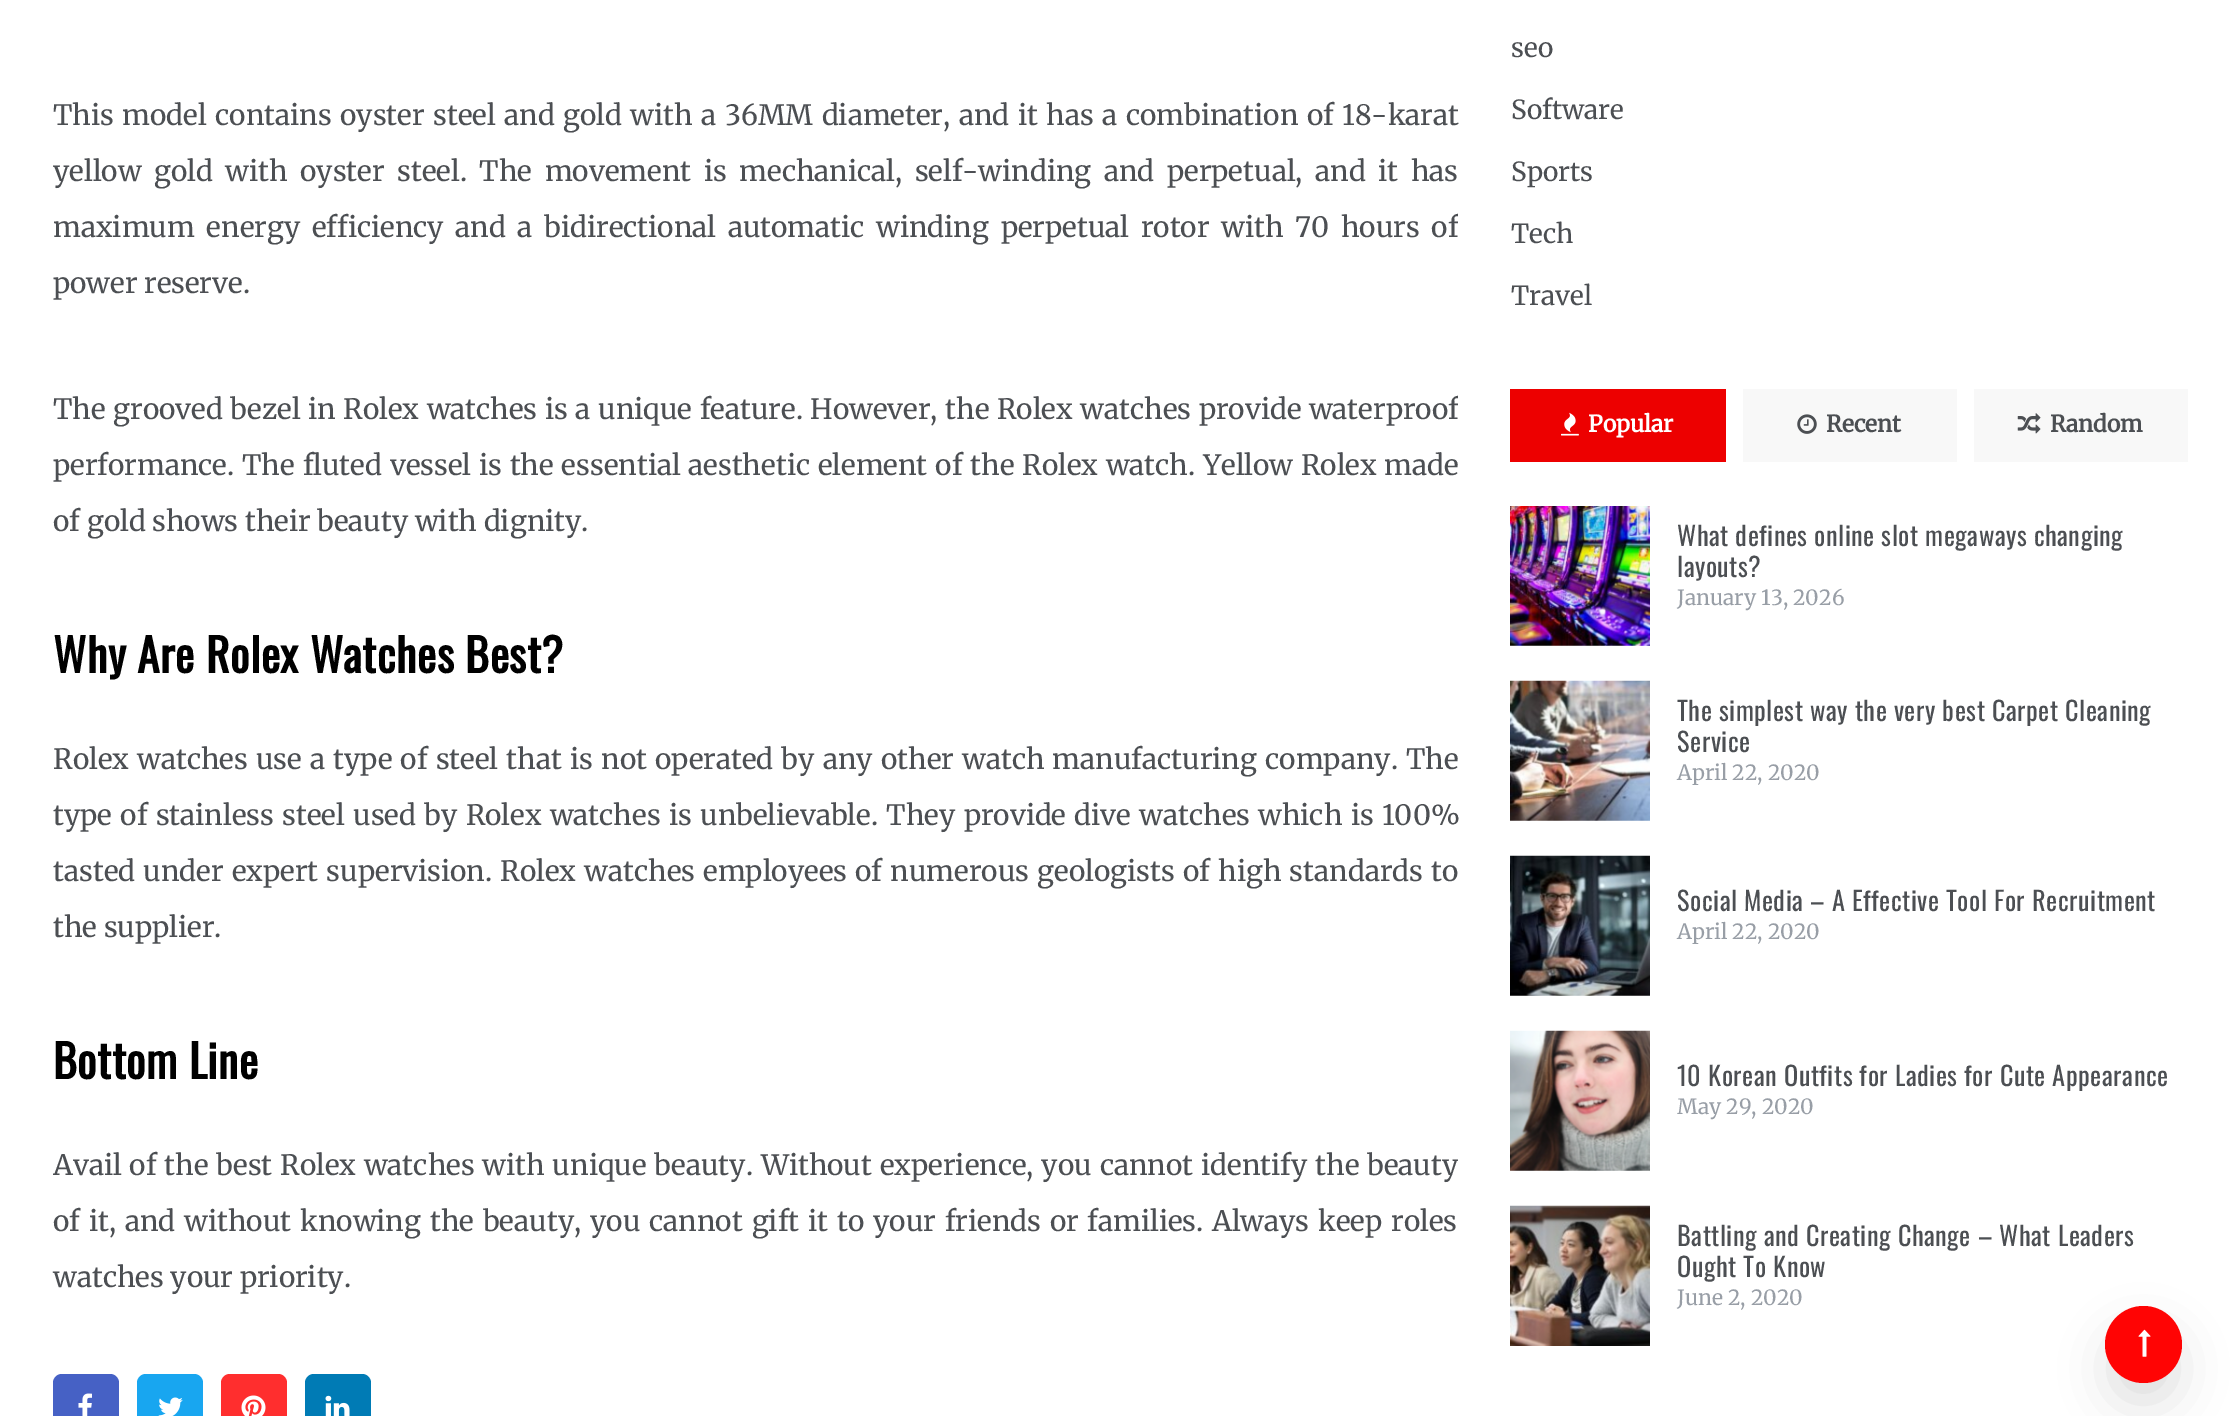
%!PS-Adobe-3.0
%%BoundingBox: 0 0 2234 1416
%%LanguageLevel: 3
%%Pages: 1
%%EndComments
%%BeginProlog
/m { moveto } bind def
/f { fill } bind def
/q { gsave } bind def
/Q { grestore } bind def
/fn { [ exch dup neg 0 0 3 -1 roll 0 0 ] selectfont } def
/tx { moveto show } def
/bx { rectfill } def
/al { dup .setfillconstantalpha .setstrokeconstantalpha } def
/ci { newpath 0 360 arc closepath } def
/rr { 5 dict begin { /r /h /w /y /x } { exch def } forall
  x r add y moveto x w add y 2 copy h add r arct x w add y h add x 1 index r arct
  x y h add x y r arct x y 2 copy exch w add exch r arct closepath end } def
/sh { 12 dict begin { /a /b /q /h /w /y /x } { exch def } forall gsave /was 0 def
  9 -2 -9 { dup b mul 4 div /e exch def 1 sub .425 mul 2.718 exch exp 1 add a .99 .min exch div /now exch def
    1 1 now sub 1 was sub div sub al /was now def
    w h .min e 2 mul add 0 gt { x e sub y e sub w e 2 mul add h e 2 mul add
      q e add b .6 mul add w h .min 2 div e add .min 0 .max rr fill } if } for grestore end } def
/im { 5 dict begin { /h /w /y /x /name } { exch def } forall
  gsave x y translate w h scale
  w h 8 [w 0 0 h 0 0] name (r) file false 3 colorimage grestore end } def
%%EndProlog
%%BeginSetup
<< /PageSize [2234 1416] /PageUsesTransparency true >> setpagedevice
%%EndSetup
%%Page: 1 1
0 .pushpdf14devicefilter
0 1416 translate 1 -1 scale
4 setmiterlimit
1 setgray
0 0 2234 1416 bx
/Merriweather-Light 28 fn
0.298 0.31 0.325 setrgbcolor
53 125 m 1.9 0 32 (This model contains oyster steel and gold with a 36MM diameter, and it has a combination of 18-karat) widthshow
53 181 m 6 0 32 (yellow gold with oyster steel. The movement is mechanical, self-winding and perpetual, and it has) widthshow
q
53 0 1405 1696 rectclip
53 237 m 5.1 0 32 (maximum energy efficiency and a bidirectional automatic winding perpetual rotor with 70 hours of) widthshow
Q
(power reserve.) 53 293 tx
q
53 0 1405 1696 rectclip
53 419 m 1 0 32 (The grooved bezel in Rolex watches is a unique feature. However, the Rolex watches provide waterproof) widthshow
Q
53 475 m 1.25 0 32 (performance. The fluted vessel is the essential aesthetic element of the Rolex watch. Yellow Rolex made) widthshow
(of gold shows their beauty with dignity.) 53 531 tx
/Oswald-Bold 45.5 fn
0 setgray
53 673 m 0.55 0 (Why Are Rolex Watches Best?) ashow
/Merriweather-Light 28 fn
0.298 0.31 0.325 setrgbcolor
53 769 m 1.6 0 32 (Rolex watches use a type of steel that is not operated by any other watch manufacturing company. The) widthshow
53 825 m 1.75 0 32 (type of stainless steel used by Rolex watches is unbelievable. They provide dive watches which is 100%) widthshow
53 881 m 1.6 0 32 (tasted under expert supervision. Rolex watches employees of numerous geologists of high standards to) widthshow
(the supplier.) 53 937 tx
/Oswald-Bold 45.5 fn
0 setgray
53 1079 m 0.55 0 (Bottom Line) ashow
q
53 0 1405 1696 rectclip
/Merriweather-Light 28 fn
0.298 0.31 0.325 setrgbcolor
53 1175 m 1.3 0 32 (Avail of the best Rolex watches with unique beauty. Without experience, you cannot identify the beauty) widthshow
Q
/Merriweather-Light 28 fn
0.298 0.31 0.325 setrgbcolor
53 1231 m 2.25 0 32 (of it, and without knowing the beauty, you cannot gift it to your friends or families. Always keep roles) widthshow
(watches your priority.) 53 1287 tx
0.275 0.38 0.773 setrgbcolor
53 1374 66 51 9 rr f
(image0.raw) 78 1393 14 23 im
0.094 0.651 0.941 setrgbcolor
137 1374 66 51 9 rr f
(image1.raw) 158 1397 25 19 im
1 0.18 0.18 setrgbcolor
221 1374 66 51 9 rr f
(image2.raw) 241 1395 25 21 im
0 0.482 0.71 setrgbcolor
305 1374 66 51 9 rr f
(image3.raw) 325 1395 25 21 im
/Merriweather-Light 26.25 fn
0.298 0.31 0.325 setrgbcolor
(seo) 1511 57 tx
(Software) 1511 119 tx
(Sports) 1511 181 tx
(Tech) 1511 243 tx
(Travel) 1511 305 tx
0.929 0 0 setrgbcolor
1510 389 216 73 bx
(image4.raw) 1561 412 18 24 im
/Merriweather-Bold 22.75 fn
1 setgray
(Popular) 1588 432 tx
0.973 setgray
1743 389 214 73 bx
(image5.raw) 1797 414 20 20 im
0.298 0.31 0.325 setrgbcolor
(Recent) 1826 432 tx
0.973 setgray
1974 389 214 73 bx
(image6.raw) 2017 413 24 21 im
0.298 0.31 0.325 setrgbcolor
(Random) 2050 432 tx
(image7.raw) 1510 506 140 140 im
/Oswald-Regular 26.25 fn
1677 546 m 0.55 0 (What defines online slot megaways changing) ashow
1677 577 m 0.55 0 (layouts?) ashow
/Merriweather-Light 21 fn
0.596 0.62 0.651 setrgbcolor
(January 13, 2026) 1677 605 tx
(image8.raw) 1510 680 140 141 im
/Oswald-Regular 26.25 fn
0.298 0.31 0.325 setrgbcolor
1677 721 m 0.55 0 (The simplest way the very best Carpet Cleaning) ashow
1677 752 m 0.55 0 (Service) ashow
/Merriweather-Light 21 fn
0.596 0.62 0.651 setrgbcolor
(April 22, 2020) 1677 780 tx
(image9.raw) 1510 855 140 141 im
/Oswald-Regular 26.25 fn
0.298 0.31 0.325 setrgbcolor
1677 911 m 0.55 0 (Social Media – A Effective Tool For Recruitment) ashow
/Merriweather-Light 21 fn
0.596 0.62 0.651 setrgbcolor
(April 22, 2020) 1677 939 tx
(image10.raw) 1510 1030 140 141 im
/Oswald-Regular 26.25 fn
0.298 0.31 0.325 setrgbcolor
1677 1086 m 0.55 0 (10 Korean Outfits for Ladies for Cute Appearance) ashow
/Merriweather-Light 21 fn
0.596 0.62 0.651 setrgbcolor
(May 29, 2020) 1677 1114 tx
(image11.raw) 1510 1205 140 141 im
/Oswald-Regular 26.25 fn
0.298 0.31 0.325 setrgbcolor
1677 1246 m 0.55 0 (Battling and Creating Change – What Leaders) ashow
1677 1277 m 0.55 0 (Ought To Know) ashow
/Merriweather-Light 21 fn
0.596 0.62 0.651 setrgbcolor
(June 2, 2020) 1677 1305 tx
0.071 0.082 0.094 setrgbcolor
2112 1337 63 63 31.5 24.5 0.15 sh
1 0.016 0.016 setrgbcolor
2143.5 1344.5 38.5 ci f
(image12.raw) 2138 1329 13 28 im
.poppdf14devicefilter showpage
%%EOF
